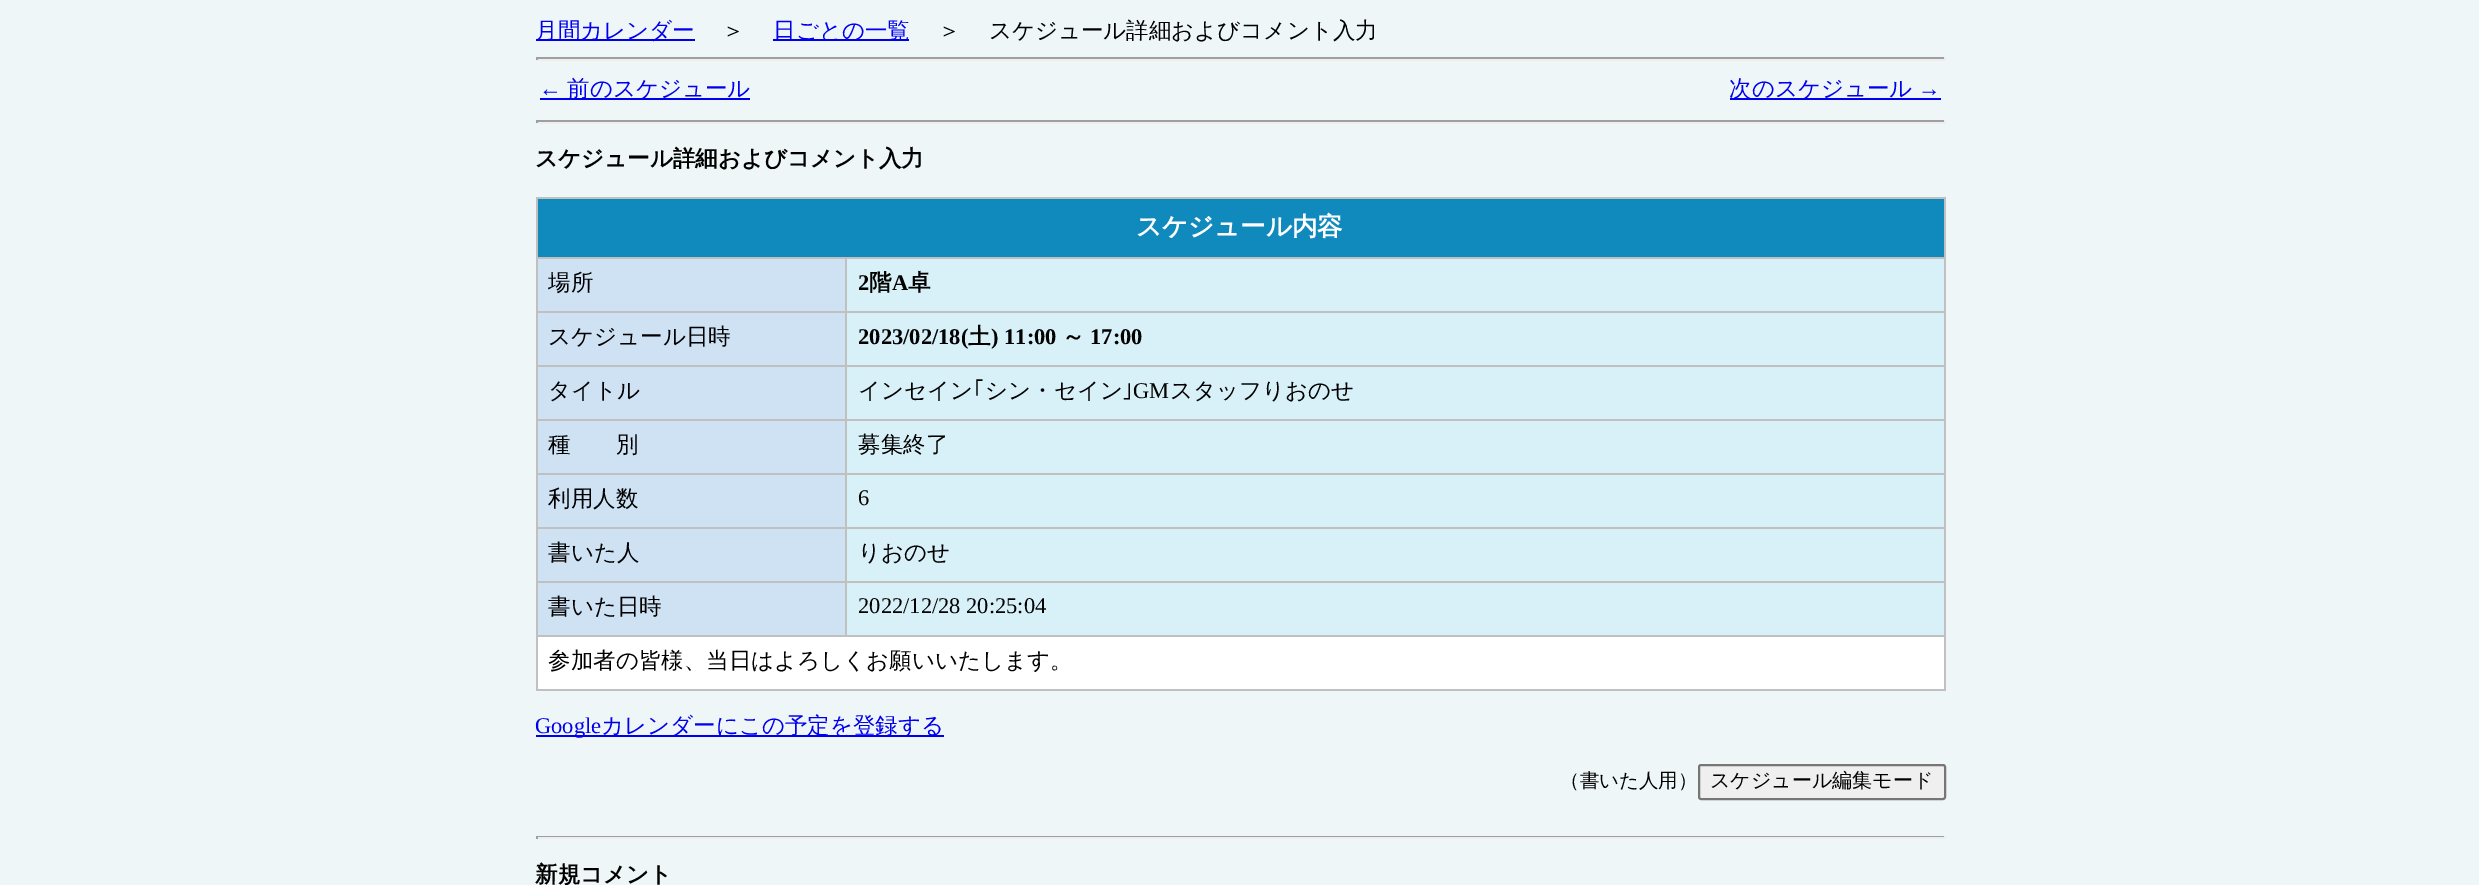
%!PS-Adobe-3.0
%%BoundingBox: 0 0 2479 885
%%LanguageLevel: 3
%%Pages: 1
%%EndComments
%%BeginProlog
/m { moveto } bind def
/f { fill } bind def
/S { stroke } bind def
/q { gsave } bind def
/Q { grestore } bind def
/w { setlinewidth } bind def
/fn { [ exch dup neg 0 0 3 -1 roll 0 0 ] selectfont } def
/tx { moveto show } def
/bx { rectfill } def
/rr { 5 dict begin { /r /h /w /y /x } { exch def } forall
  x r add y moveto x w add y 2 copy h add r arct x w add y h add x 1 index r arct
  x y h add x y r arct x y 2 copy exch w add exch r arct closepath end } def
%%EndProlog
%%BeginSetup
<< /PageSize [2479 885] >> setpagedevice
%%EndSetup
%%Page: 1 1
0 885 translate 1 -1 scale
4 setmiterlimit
0.933 0.965 0.973 setrgbcolor
0 0 2479 885 bx
0 0 0.933 setrgbcolor
536 39 159 2 bx
/WenQuanYiZenHei-Medium 22.5 fn
(月間カレンダー) 535 38 tx
0 setgray
(＞) 722 38 tx
0 0 0.933 setrgbcolor
773 39 136 2 bx
(日ごとの一覧) 773 38 tx
0 setgray
938 38 m -1 0 32 (＞　 スケジュール詳細およびコメント入力) widthshow
0.624 setgray
536 57 1410 2 bx
0.933 setgray
1944 57 2 3 bx
536 59 1410 2 bx
0.624 setgray
536 57 2 3 bx
/LiberationSerif-Regular 22.5 fn
0 0 0.933 setrgbcolor
(←) 539 96 tx
540 98 210 2 bx
/WenQuanYiZenHei-Medium 22.5 fn
(前のスケジュール) 567 96 tx
1730 98 211 2 bx
(次のスケジュール) 1729 96 tx
/LiberationSerif-Regular 22.5 fn
(→) 1918 96 tx
0.624 setgray
536 120 1410 2 bx
0.933 setgray
1944 120 2 3 bx
536 122 1410 2 bx
0.624 setgray
536 120 2 3 bx
/WenQuanYiZenHei-Bold 22.5 fn
0 setgray
(スケジュール詳細およびコメント入力) 535 166 tx
0.753 setgray
536 197 1410 2 bx
1944 197 2 493 bx
536 689 1410 2 bx
536 197 2 493 bx
0.063 0.537 0.741 setrgbcolor
538 199 1406 58 bx
/WenQuanYiZenHei-Bold 25.5 fn
1 setgray
(スケジュール内容) 1136 235 tx
0.812 0.886 0.957 setrgbcolor
538 259 307 52 bx
0.753 setgray
845 257 1101 2 bx
845 311 1101 2 bx
845 365 1101 2 bx
845 419 1101 2 bx
845 473 1101 2 bx
845 527 1101 2 bx
845 581 1101 2 bx
536 635 1410 2 bx
845 581 2 55 bx
536 581 310 2 bx
845 527 2 55 bx
536 527 310 2 bx
845 473 2 55 bx
536 473 310 2 bx
845 419 2 55 bx
536 419 310 2 bx
845 365 2 55 bx
536 365 310 2 bx
845 311 2 55 bx
536 311 310 2 bx
845 257 2 55 bx
536 257 310 2 bx
/WenQuanYiZenHei-Medium 22.5 fn
0 setgray
(場所) 548 290 tx
0.847 0.945 0.973 setrgbcolor
847 259 1097 52 bx
/LiberationSerif-Bold 22.5 fn
0 setgray
(2) 858 290 tx
/WenQuanYiZenHei-Bold 22.5 fn
(階) 869 290 tx
/LiberationSerif-Bold 22.5 fn
(A) 892 290 tx
/WenQuanYiZenHei-Bold 22.5 fn
(卓) 908 290 tx
0.812 0.886 0.957 setrgbcolor
538 313 307 52 bx
/WenQuanYiZenHei-Medium 22.5 fn
0 setgray
(スケジュール日時) 548 344 tx
0.847 0.945 0.973 setrgbcolor
847 313 1097 52 bx
/LiberationSerif-Bold 22.5 fn
0 setgray
(2023/02/18\() 858 344 tx
/WenQuanYiZenHei-Bold 22.5 fn
(土) 968 344 tx
/LiberationSerif-Bold 22.5 fn
(\) 11:00) 991 344 tx
/WenQuanYiZenHei-Bold 22.5 fn
(～) 1062 344 tx
/LiberationSerif-Bold 22.5 fn
(17:00) 1090 344 tx
0.812 0.886 0.957 setrgbcolor
538 367 307 52 bx
/WenQuanYiZenHei-Medium 22.5 fn
0 setgray
(タイトル) 548 398 tx
0.847 0.945 0.973 setrgbcolor
847 367 1097 52 bx
0 setgray
(インセイン) 858 398 tx
/IPAGothic-Regular 22.5 fn
(｢) 973 398 tx
/WenQuanYiZenHei-Medium 22.5 fn
(シン・セイン) 985 398 tx
/IPAGothic-Regular 22.5 fn
(｣) 1122 398 tx
/LiberationSerif-Regular 22.5 fn
(GM) 1133 398 tx
/WenQuanYiZenHei-Medium 22.5 fn
(スタッフりおのせ) 1170 398 tx
0.812 0.886 0.957 setrgbcolor
538 421 307 52 bx
0 setgray
(種　　別) 548 452 tx
0.847 0.945 0.973 setrgbcolor
847 421 1097 52 bx
0 setgray
(募集終了) 858 452 tx
0.812 0.886 0.957 setrgbcolor
538 475 307 52 bx
0 setgray
(利用人数) 548 506 tx
0.847 0.945 0.973 setrgbcolor
847 475 1097 52 bx
/LiberationSerif-Regular 22.5 fn
0 setgray
(6) 858 505 tx
0.812 0.886 0.957 setrgbcolor
538 529 307 52 bx
/WenQuanYiZenHei-Medium 22.5 fn
0 setgray
(書いた人) 548 560 tx
0.847 0.945 0.973 setrgbcolor
847 529 1097 52 bx
0 setgray
(りおのせ) 858 560 tx
0.812 0.886 0.957 setrgbcolor
538 583 307 52 bx
0 setgray
(書いた日時) 548 614 tx
0.847 0.945 0.973 setrgbcolor
847 583 1097 52 bx
/LiberationSerif-Regular 22.5 fn
0 setgray
(2022/12/28 20:25:04) 858 613 tx
1 setgray
538 637 1406 52 bx
/WenQuanYiZenHei-Medium 22.5 fn
0 setgray
(参加者の皆様、当日はよろしくお願いいたします。) 548 668 tx
0 0 0.933 setrgbcolor
536 735 408 2 bx
/LiberationSerif-Regular 22.5 fn
(Google) 535 733 tx
/WenQuanYiZenHei-Medium 22.5 fn
(カレンダーにこの予定を登録する) 601 733 tx
/WenQuanYiZenHei-Medium 19.5 fn
0 setgray
(（書いた人用）) 1560 787 tx
0.937 setgray
1699 765 246 34 2 rr q f Q
0.463 setgray
2 w
S
/WenQuanYiZenHei-Medium 20 fn
0 setgray
(スケジュール編集モード) 1710 787 tx
0.624 setgray
536 836 1410 1 bx
0.933 setgray
1944 836 2 3 bx
536 837 1410 2 bx
0.624 setgray
536 836 2 3 bx
/WenQuanYiZenHei-Bold 22.5 fn
0 setgray
(新規コメント) 535 882 tx
showpage
%%EOF
